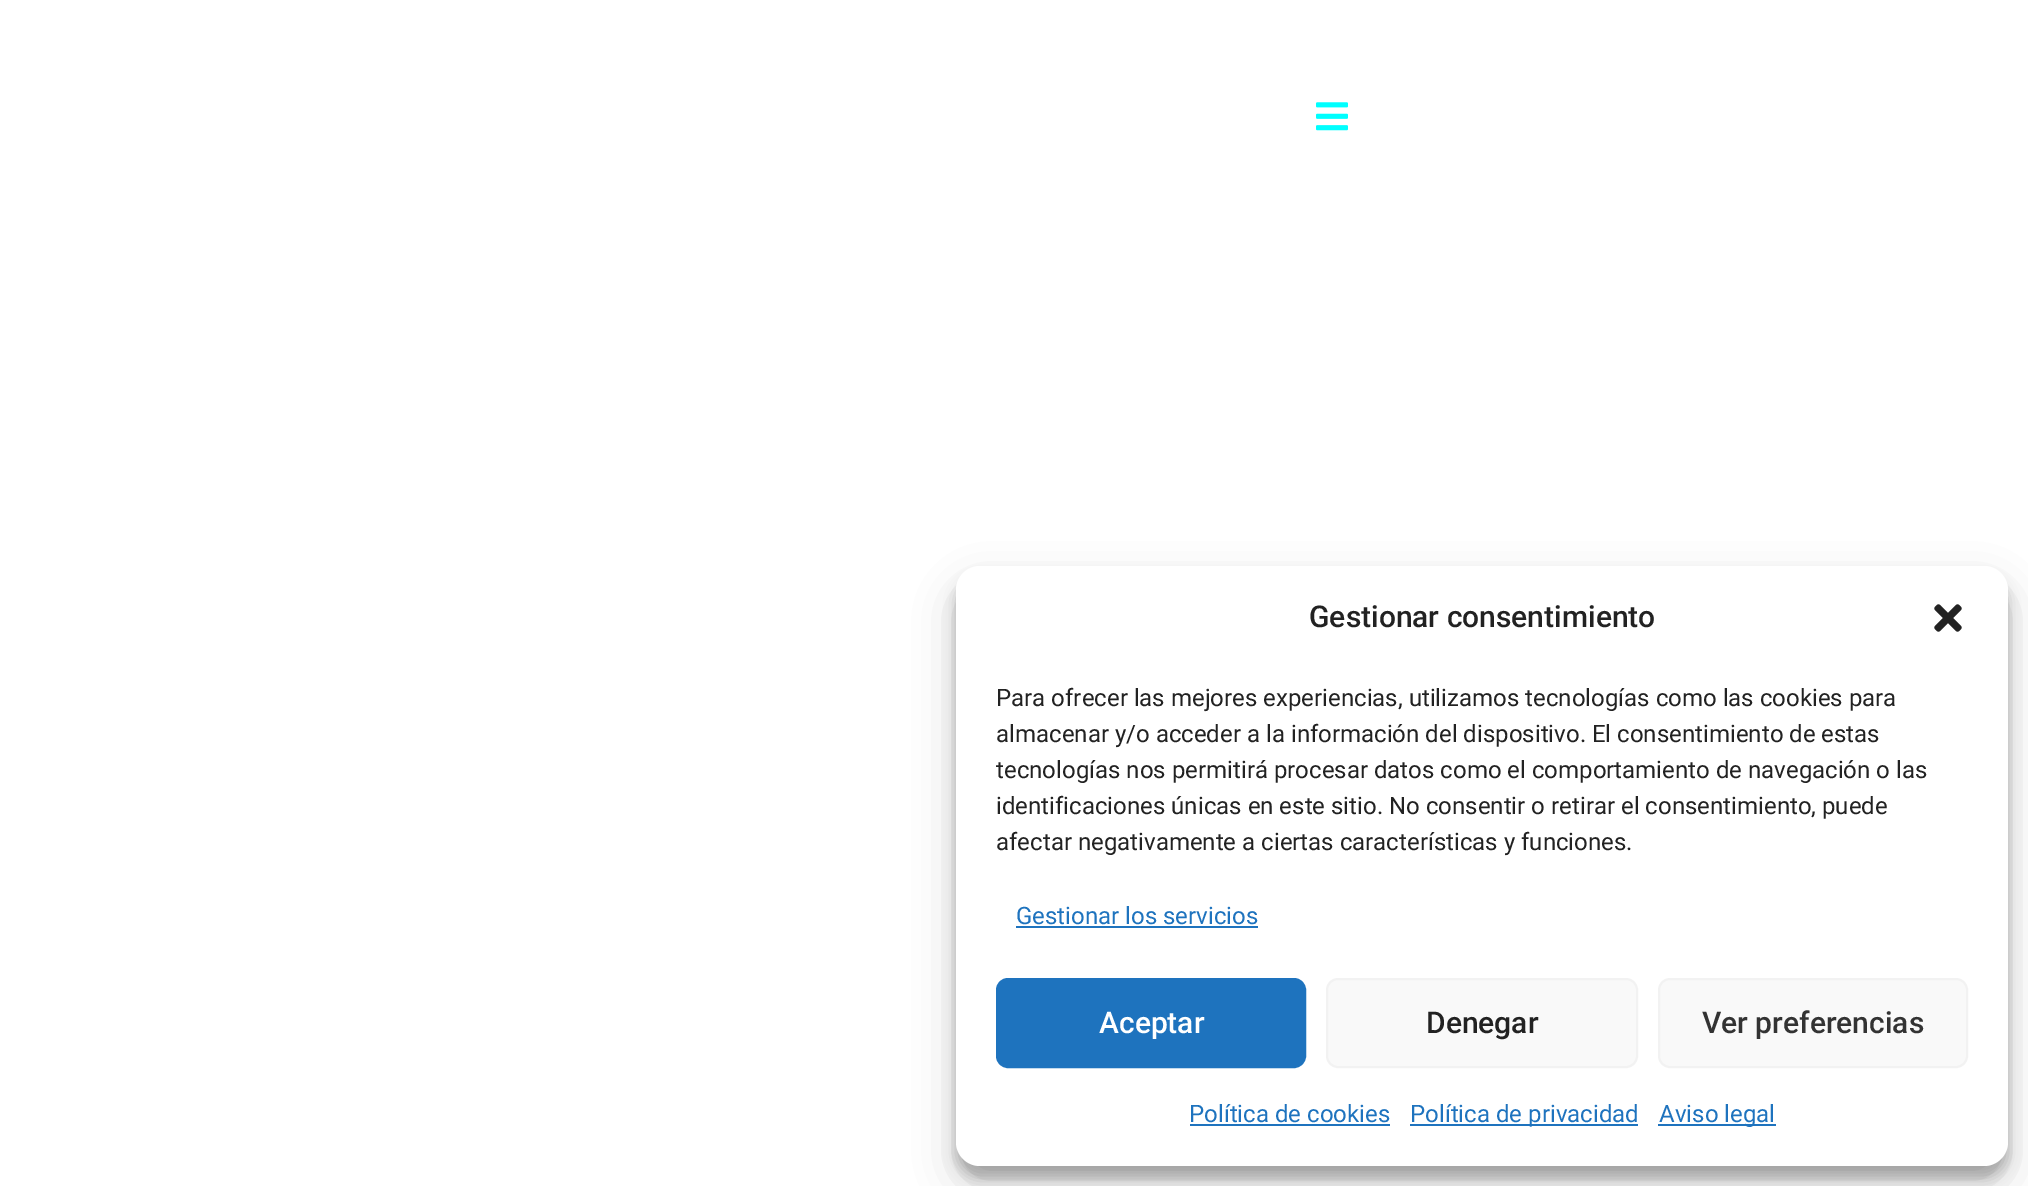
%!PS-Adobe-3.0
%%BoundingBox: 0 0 2028 1186
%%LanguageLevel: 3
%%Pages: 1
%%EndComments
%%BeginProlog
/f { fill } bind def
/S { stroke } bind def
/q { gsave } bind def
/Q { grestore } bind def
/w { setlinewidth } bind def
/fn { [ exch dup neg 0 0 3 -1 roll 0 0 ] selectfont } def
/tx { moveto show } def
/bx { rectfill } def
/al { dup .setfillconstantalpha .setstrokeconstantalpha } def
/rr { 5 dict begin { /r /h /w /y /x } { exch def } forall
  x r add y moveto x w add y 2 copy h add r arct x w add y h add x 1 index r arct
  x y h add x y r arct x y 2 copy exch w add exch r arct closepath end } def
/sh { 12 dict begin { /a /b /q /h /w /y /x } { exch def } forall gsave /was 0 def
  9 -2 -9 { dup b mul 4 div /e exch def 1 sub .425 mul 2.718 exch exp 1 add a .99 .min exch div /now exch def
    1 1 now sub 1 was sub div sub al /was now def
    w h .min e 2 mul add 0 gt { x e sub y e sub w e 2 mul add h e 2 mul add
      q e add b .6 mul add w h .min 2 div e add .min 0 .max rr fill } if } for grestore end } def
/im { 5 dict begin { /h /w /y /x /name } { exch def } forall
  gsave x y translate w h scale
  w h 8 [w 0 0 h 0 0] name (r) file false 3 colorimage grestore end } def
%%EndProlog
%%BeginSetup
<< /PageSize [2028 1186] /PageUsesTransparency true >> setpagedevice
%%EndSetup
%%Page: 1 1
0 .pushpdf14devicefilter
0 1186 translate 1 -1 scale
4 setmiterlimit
1 setgray
0 0 2028 1186 bx
(image0.raw) 1316 102 32 29 im
0 setgray
956 578 1052 600 24 6 0.23 sh
956 586 1052 600 24 20 0.19 sh
1 setgray
956 566 1052 600 24 rr f
/Roboto-Medium 30 fn
0.133 setgray
(Gestionar consentimiento) 1309 627 tx
(image1.raw) 1934 604 28 28 im
/Roboto-Regular 24 fn
(Para ofrecer las mejores experiencias, utilizamos tecnologías como las cookies para) 996 706 tx
(almacenar y/o acceder a la información del dispositivo. El consentimiento de estas) 996 742 tx
(tecnologías nos permitirá procesar datos como el comportamiento de navegación o las) 996 778 tx
(identificaciones únicas en este sitio. No consentir o retirar el consentimiento, puede) 996 814 tx
(afectar negativamente a ciertas características y funciones.) 996 850 tx
0.118 0.451 0.745 setrgbcolor
(Gestionar los servicios) 1016 924 tx
1016 926 242 2 bx
997 979 308 88 11 rr q f Q
2 w
S
/Roboto-Medium 30 fn
1 setgray
(Aceptar) 1099 1033 tx
0.976 setgray
1327 979 310 88 11 rr q f Q
0.949 setgray
S
0.133 setgray
(Denegar) 1426 1033 tx
0.976 setgray
1659 979 308 88 11 rr q f Q
0.949 setgray
S
0.2 setgray
(Ver preferencias) 1702 1033 tx
/Roboto-Regular 24 fn
0.118 0.451 0.745 setrgbcolor
(Política de cookies) 1189 1122 tx
1190 1124 200 2 bx
1410 1124 228 2 bx
(Política de privacidad) 1410 1122 tx
1658 1124 118 2 bx
(Aviso legal) 1659 1122 tx
.poppdf14devicefilter showpage
%%EOF
